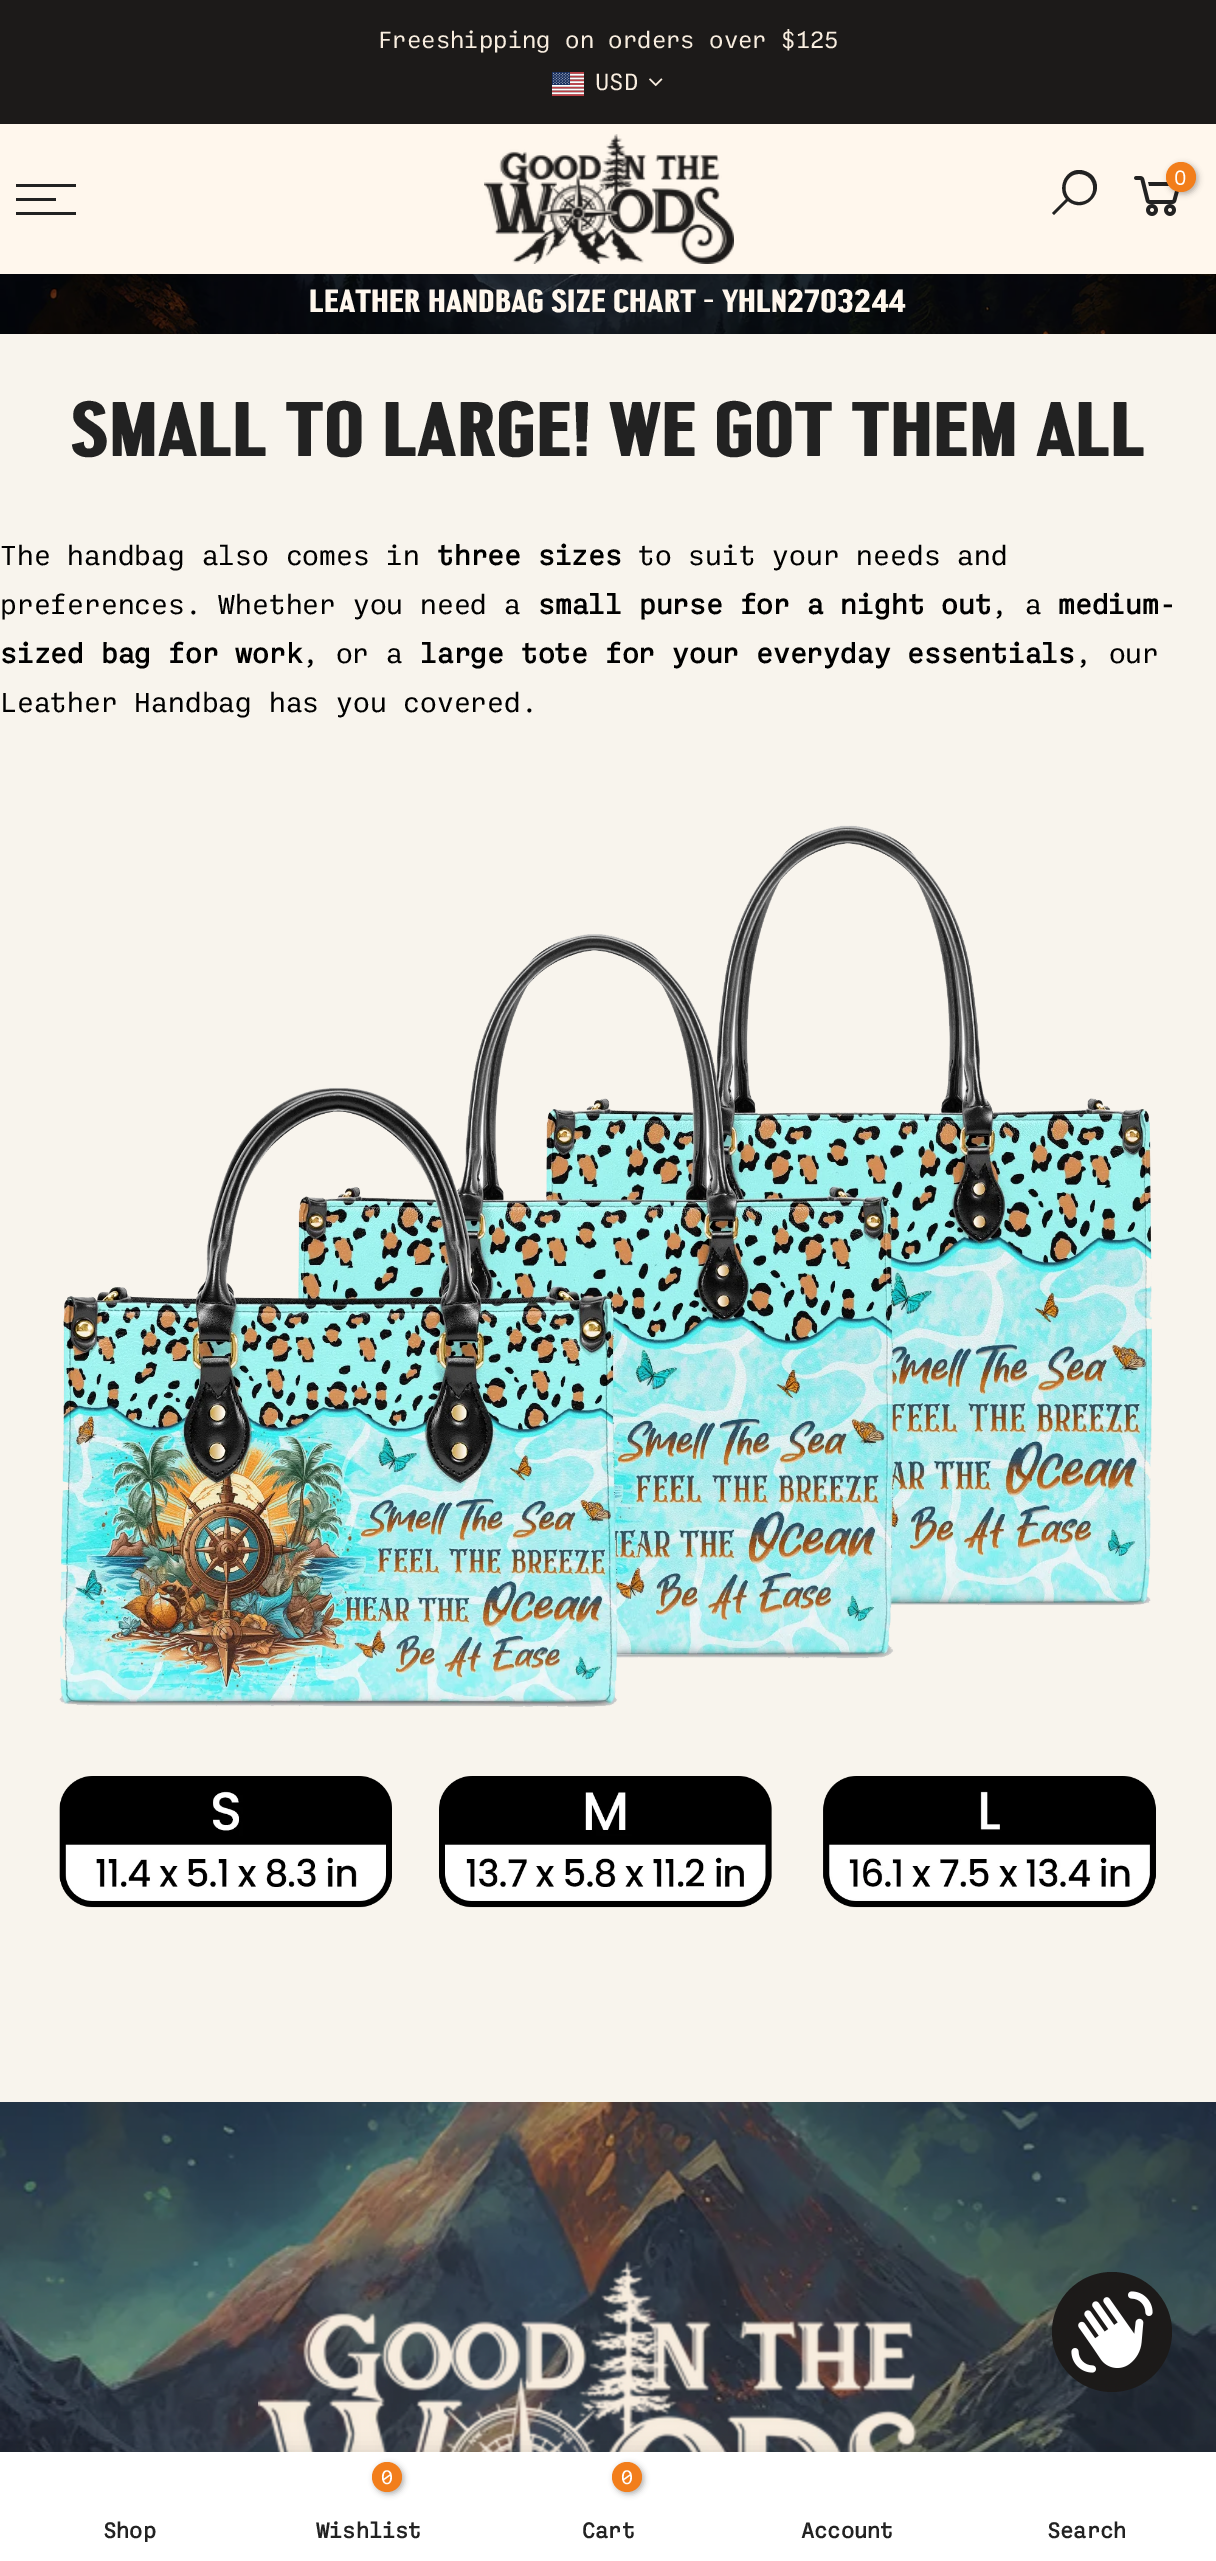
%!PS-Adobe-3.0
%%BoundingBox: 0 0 1216 2561
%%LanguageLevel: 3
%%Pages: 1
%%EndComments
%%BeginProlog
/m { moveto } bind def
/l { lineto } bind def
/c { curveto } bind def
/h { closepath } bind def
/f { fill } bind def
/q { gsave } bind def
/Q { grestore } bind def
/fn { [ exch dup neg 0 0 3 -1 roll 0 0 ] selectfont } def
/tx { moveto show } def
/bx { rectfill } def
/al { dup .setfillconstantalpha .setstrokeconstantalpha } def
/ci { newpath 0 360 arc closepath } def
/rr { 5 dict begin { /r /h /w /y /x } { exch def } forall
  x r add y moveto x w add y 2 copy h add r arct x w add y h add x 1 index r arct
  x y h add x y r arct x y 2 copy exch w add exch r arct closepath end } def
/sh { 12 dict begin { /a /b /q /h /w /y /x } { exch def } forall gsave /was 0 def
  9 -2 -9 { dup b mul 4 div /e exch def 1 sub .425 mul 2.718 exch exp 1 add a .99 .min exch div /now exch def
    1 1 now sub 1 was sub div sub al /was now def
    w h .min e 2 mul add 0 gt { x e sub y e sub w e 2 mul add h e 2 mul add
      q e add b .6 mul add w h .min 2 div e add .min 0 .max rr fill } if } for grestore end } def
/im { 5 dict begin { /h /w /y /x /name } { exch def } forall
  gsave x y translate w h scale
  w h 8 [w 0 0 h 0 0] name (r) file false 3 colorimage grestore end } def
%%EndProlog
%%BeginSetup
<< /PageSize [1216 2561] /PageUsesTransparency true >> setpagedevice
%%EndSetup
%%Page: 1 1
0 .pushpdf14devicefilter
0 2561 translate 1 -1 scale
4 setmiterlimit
0.973 0.957 0.929 setrgbcolor
0 0 1216 2561 bx
0.11 0.102 0.098 setrgbcolor
0 0 1216 124 bx
/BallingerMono-Regular 24 fn
0.973 0.929 0.875 setrgbcolor
(Freeshipping on orders over $125) 378 48 tx
(image0.raw) 552 72 32 24 im
(USD) 595 90 tx
(image1.raw) 649 78 14 9 im
1 0.969 0.929 setrgbcolor
0 124 1216 150 bx
(image2.raw) 484 134 250 130 im
0.133 setgray
1079 170 m 1065 170 1057 188 1066 199 c 1052 213 l 1054 215 l 1068 201 l 1085 215 1107 191 1092 175 c 1088 172 1084 170 1079 170 c h 1079 174 m 1098 174 1098 202 1079 202 c 1061 202 1061 174 1079 174 c h f
(image3.raw) 1134 176 45 40 im
0 setgray
1168 164 30 30 15 3 0.3 sh
0.949 0.494 0.106 setrgbcolor
1181 177 15 ci f
/Poppins-Regular 20 fn
1 setgray
(0) 1174 185 tx
0.133 setgray
16 184 60 3 bx
16 198 40 3 bx
16 212 60 3 bx
(image4.raw) 0 274 1216 60 im
/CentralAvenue-Bold 32 fn
1 0.969 0.929 setrgbcolor
(LEATHER HANDBAG SIZE CHART - YHLN2703244) 309 312 tx
/CentralAvenue-Bold 77 fn
0.133 setgray
(SMALL TO LARGE! WE GOT THEM ALL) 70 456 tx
/BallingerMono-Regular 28 fn
0 setgray
(The handbag also comes in) 0 565 tx
/BallingerMono-Bold 28 fn
(three sizes) 437 565 tx
/BallingerMono-Regular 28 fn
(to suit your needs and) 638 565 tx
(preferences. Whether you need a) 0 614 tx
/BallingerMono-Bold 28 fn
(small purse for a night out) 538 614 tx
/BallingerMono-Regular 28 fn
(, a) 991 614 tx
/BallingerMono-Bold 28 fn
(medium-) 1058 614 tx
(sized bag for work) 0 663 tx
/BallingerMono-Regular 28 fn
(, or a) 302 663 tx
/BallingerMono-Bold 28 fn
(large tote for your everyday essentials) 420 663 tx
/BallingerMono-Regular 28 fn
(, our) 1075 663 tx
(Leather Handbag has you covered.) 0 712 tx
(image5.raw) 59 825 1097 1083 im
(image6.raw) 0 2102 1216 350 im
(image7.raw) 258 2261 659 191 im
0.11 0.102 0.098 setrgbcolor
1112 2332 60 ci f
(image8.raw) 1071 2291 82 82 im
0 setgray
0 2452 1216 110 0 9 0.12 sh
1 setgray
0 2452 1216 109 bx
q
30 2520 200 22 rectclip
/BallingerMono-Bold 22 fn
0.133 setgray
(Shop) 103 2538 tx
Q
0 setgray
374 2464 30 30 15 3 0.3 sh
0.949 0.494 0.106 setrgbcolor
387 2477 15 ci f
/BallingerMono-Regular 20 fn
1 setgray
(0) 381 2484 tx
/BallingerMono-Bold 22 fn
0.133 setgray
(Wishlist) 316 2538 tx
0 setgray
614 2464 30 30 15 3 0.3 sh
0.949 0.494 0.106 setrgbcolor
627 2477 15 ci f
/BallingerMono-Regular 20 fn
1 setgray
(0) 621 2484 tx
/BallingerMono-Bold 22 fn
0.133 setgray
(Cart) 582 2538 tx
(Account) 801 2538 tx
(Search) 1047 2538 tx
.poppdf14devicefilter showpage
%%EOF
